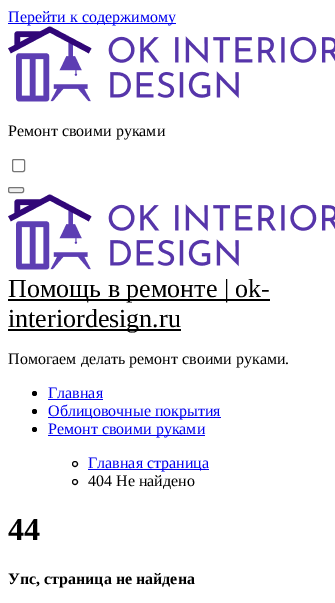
%!PS-Adobe-3.0
%%BoundingBox: 0 0 335 603
%%LanguageLevel: 3
%%Pages: 1
%%EndComments
%%BeginProlog
/f { fill } bind def
/S { stroke } bind def
/q { gsave } bind def
/Q { grestore } bind def
/fn { [ exch dup neg 0 0 3 -1 roll 0 0 ] selectfont } def
/tx { moveto show } def
/bx { rectfill } def
/ci { newpath 0 360 arc closepath } def
/rr { 5 dict begin { /r /h /w /y /x } { exch def } forall
  x r add y moveto x w add y 2 copy h add r arct x w add y h add x 1 index r arct
  x y h add x y r arct x y 2 copy exch w add exch r arct closepath end } def
/im { 5 dict begin { /h /w /y /x /name } { exch def } forall
  gsave x y translate w h scale
  w h 8 [w 0 0 h 0 0] name (r) file false 3 colorimage grestore end } def
%%EndProlog
%%BeginSetup
<< /PageSize [335 603] >> setpagedevice
%%EndSetup
%%Page: 1 1
0 603 translate 1 -1 scale
4 setmiterlimit
1 setgray
0 0 335 603 bx
0 0 0.933 setrgbcolor
8 23 168 1 bx
/LiberationSerif-Regular 16 fn
(Перейти к содержимому) 8 22 tx
(image0.raw) 8 26 327 76 im
0 setgray
(Ремонт своими руками) 8 136 tx
0.463 setgray
12.5 159.5 12 12 1.5 rr S
0.937 setgray
8.5 187.5 15 5 1.5 rr q f Q
0.463 setgray
S
(image0.raw) 8 194 327 76 im
0 setgray
8 299 262 2 bx
/LiberationSerif-Regular 26 fn
(Помощь в ремонте | ok-) 8 297 tx
8 329 173 2 bx
(interiordesign.ru) 8 327 tx
/LiberationSerif-Regular 16 fn
(Помогаем делать ремонт своими руками.) 8 364 tx
34.5 393.5 2.5 ci f
0 0 0.933 setrgbcolor
(Главная) 48 398 tx
48 399 55 1 bx
0 setgray
34.5 411.5 2.5 ci f
0 0 0.933 setrgbcolor
48 417 173 1 bx
(Облицовочные покрытия) 48 416 tx
0 setgray
34.5 429.5 2.5 ci f
0 0 0.933 setrgbcolor
48 435 157 1 bx
(Ремонт своими руками) 48 434 tx
0 setgray
75 464 2.5 ci S
0 0 0.933 setrgbcolor
88 469 121 1 bx
(Главная страница) 88 468 tx
0 setgray
75 482 2.5 ci S
(404 Не найдено) 88 486 tx
/LiberationSerif-Bold 32 fn
(44) 8 540 tx
/LiberationSerif-Bold 16 fn
(Упс, страница не найдена) 8 584 tx
showpage
%%EOF
